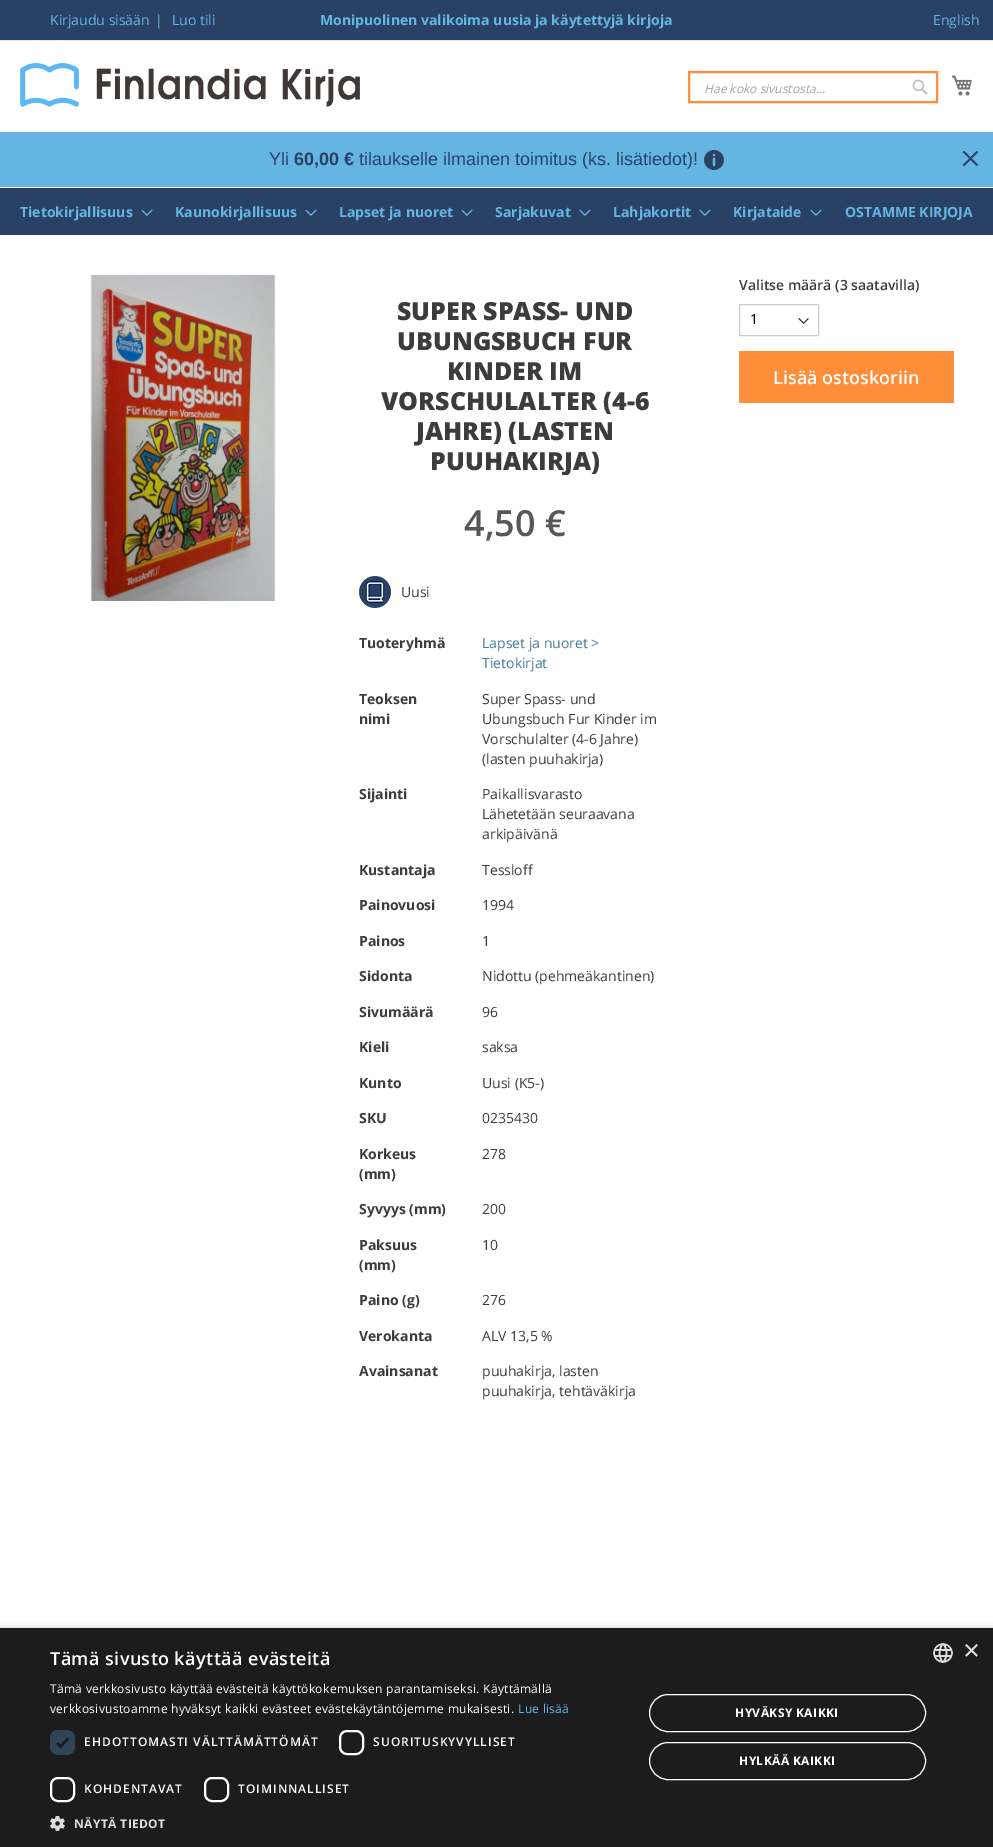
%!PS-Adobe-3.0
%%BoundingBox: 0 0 993 1847
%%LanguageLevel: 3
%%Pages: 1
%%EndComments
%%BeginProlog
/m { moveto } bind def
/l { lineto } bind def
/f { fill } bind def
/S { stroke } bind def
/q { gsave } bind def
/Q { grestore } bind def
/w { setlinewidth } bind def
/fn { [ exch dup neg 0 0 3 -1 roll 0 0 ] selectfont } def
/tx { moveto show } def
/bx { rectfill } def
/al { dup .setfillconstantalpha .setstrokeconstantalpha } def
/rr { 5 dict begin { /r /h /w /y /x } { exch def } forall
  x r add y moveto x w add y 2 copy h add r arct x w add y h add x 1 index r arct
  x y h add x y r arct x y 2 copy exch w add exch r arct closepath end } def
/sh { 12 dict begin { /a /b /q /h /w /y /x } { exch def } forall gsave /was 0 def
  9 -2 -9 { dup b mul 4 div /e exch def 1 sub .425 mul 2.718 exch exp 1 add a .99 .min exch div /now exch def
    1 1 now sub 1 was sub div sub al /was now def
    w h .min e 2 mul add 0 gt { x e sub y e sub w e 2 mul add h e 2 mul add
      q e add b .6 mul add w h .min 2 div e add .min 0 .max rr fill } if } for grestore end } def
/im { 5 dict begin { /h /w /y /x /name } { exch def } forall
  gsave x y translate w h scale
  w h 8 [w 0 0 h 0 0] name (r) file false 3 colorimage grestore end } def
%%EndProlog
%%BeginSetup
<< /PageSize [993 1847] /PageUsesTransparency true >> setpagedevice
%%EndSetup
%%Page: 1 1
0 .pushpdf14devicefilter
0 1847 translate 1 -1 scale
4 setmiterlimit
1 setgray
0 0 993 1847 bx
0.161 0.255 0.396 setrgbcolor
0 0 993 40 bx
0.91 setgray
0 40 993 1 bx
/OpenSans-Regular 14 fn
0.396 0.71 0.89 setrgbcolor
(Kirjaudu sisään) 50 25 tx
(|) 155 25 tx
(Luo tili) 172 25 tx
/OpenSans-Bold 14 fn
(Monipuolinen valikoima uusia ja käytettyjä kirjoja) 320 25 tx
/OpenSans-Regular 14 fn
(English) 933 25 tx
(image0.raw) 20 63 340 44 im
1 0.557 0.227 setrgbcolor
2 w
689 72 248 30 rectstroke
/OpenSans-Italic 12 fn
0.635 setgray
(Hae koko sivustosta...) 704 93 tx
(image1.raw) 912 79 16 16 im
(image2.raw) 952 75 20 21 im
0.396 0.71 0.89 setrgbcolor
0 132 993 55 bx
/LiberationSans-Regular 18 fn
0.161 0.255 0.396 setrgbcolor
(Yli) 269 165 tx
/LiberationSans-Bold 18 fn
(60,00 €) 294 165 tx
/LiberationSans-Regular 18 fn
(tilaukselle ilmainen toimitus \(ks. lisätiedot\)!) 359 165 tx
(image3.raw) 704 150 20 20 im
(image4.raw) 963 151 15 15 im
0 188 993 47 bx
/OpenSans-Bold 14 fn
0.396 0.71 0.89 setrgbcolor
(Tietokirjallisuus) 20 217 tx
(image5.raw) 141 209 12 7 im
(Kaunokirjallisuus) 175 217 tx
(image5.raw) 305 209 12 7 im
(Lapset ja nuoret) 339 217 tx
(image5.raw) 461 209 12 7 im
(Sarjakuvat) 495 217 tx
(image5.raw) 579 209 12 7 im
(Lahjakortit) 613 217 tx
(image5.raw) 699 209 12 7 im
(Kirjataide) 733 217 tx
(image5.raw) 810 209 12 7 im
(OSTAMME KIRJOJA) 845 217 tx
(image6.raw) 90 275 186 326 im
/OpenSans-ExtraBold 25 fn
0.235 setgray
(SUPER SPASS- UND) 397 320 tx
(UBUNGSBUCH FUR) 397 350 tx
(KINDER IM) 447 380 tx
(VORSCHULALTER \(4-6) 381 410 tx
(JAHRE\) \(LASTEN) 416 440 tx
q
359 295 312 180 rectclip
(PUUHAKIRJA\)) 430 470 tx
Q
/OpenSans-SemiBold 36 fn
0.341 setgray
(4,50 €) 464 536 tx
(image7.raw) 359 576 32 32 im
/OpenSans-Regular 14 fn
0.235 setgray
(Uusi) 401 597 tx
/OpenSans-Bold 14 fn
(Tuoteryhmä) 359 648 tx
/OpenSans-Regular 14 fn
0.271 0.482 0.608 setrgbcolor
(Lapset ja nuoret >) 482 648 tx
(Tietokirjat) 482 668 tx
/OpenSans-Bold 14 fn
0.235 setgray
(Teoksen) 359 704 tx
(nimi) 359 724 tx
/OpenSans-Regular 14 fn
(Super Spass- und) 482 704 tx
(Ubungsbuch Fur Kinder im) 482 724 tx
(Vorschulalter \(4-6 Jahre\)) 482 744 tx
(\(lasten puuhakirja\)) 482 764 tx
/OpenSans-Bold 14 fn
(Sijainti) 359 799 tx
/OpenSans-Regular 14 fn
(Paikallisvarasto) 482 799 tx
(Lähetetään seuraavana) 482 819 tx
(arkipäivänä) 482 839 tx
/OpenSans-Bold 14 fn
(Kustantaja) 359 875 tx
/OpenSans-Regular 14 fn
(Tessloff) 482 875 tx
/OpenSans-Bold 14 fn
(Painovuosi) 359 910 tx
/OpenSans-Regular 14 fn
(1994) 482 910 tx
/OpenSans-Bold 14 fn
(Painos) 359 946 tx
/OpenSans-Regular 14 fn
(1) 482 946 tx
/OpenSans-Bold 14 fn
(Sidonta) 359 981 tx
/OpenSans-Regular 14 fn
(Nidottu \(pehmeäkantinen\)) 482 981 tx
/OpenSans-Bold 14 fn
(Sivumäärä) 359 1017 tx
/OpenSans-Regular 14 fn
(96) 482 1017 tx
/OpenSans-Bold 14 fn
(Kieli) 359 1052 tx
/OpenSans-Regular 14 fn
(saksa) 482 1052 tx
/OpenSans-Bold 14 fn
(Kunto) 359 1088 tx
/OpenSans-Regular 14 fn
(Uusi \(K5-\)) 482 1088 tx
/OpenSans-Bold 14 fn
(SKU) 359 1123 tx
/OpenSans-Regular 14 fn
(0235430) 482 1123 tx
/OpenSans-Bold 14 fn
(Korkeus) 359 1159 tx
(\(mm\)) 359 1179 tx
/OpenSans-Regular 14 fn
(278) 482 1159 tx
/OpenSans-Bold 14 fn
(Syvyys \(mm\)) 359 1214 tx
/OpenSans-Regular 14 fn
(200) 482 1214 tx
/OpenSans-Bold 14 fn
(Paksuus) 359 1250 tx
(\(mm\)) 359 1270 tx
/OpenSans-Regular 14 fn
(10) 482 1250 tx
/OpenSans-Bold 14 fn
(Paino \(g\)) 359 1305 tx
/OpenSans-Regular 14 fn
(276) 482 1305 tx
/OpenSans-Bold 14 fn
(Verokanta) 359 1341 tx
/OpenSans-Regular 14 fn
(ALV 13,5 %) 482 1341 tx
/OpenSans-Bold 14 fn
(Avainsanat) 359 1376 tx
/OpenSans-Regular 14 fn
(puuhakirja, lasten) 482 1376 tx
(puuhakirja, tehtäväkirja) 482 1396 tx
/OpenSans-SemiBold 14 fn
(Valitse määrä \(3 saatavilla\)) 739 290 tx
(image8.raw) 798 318 11 6 im
0.8 setgray
1 w
739.5 304.5 79 31 0.5 rr S
/OpenSans-Regular 14 fn
0 setgray
(1) 750 324 tx
1 0.557 0.227 setrgbcolor
739 351 215 52 bx
/OpenSans-SemiBold 18 fn
1 setgray
(Lisää ostoskoriin) 773 384 tx
0 setgray
1 1630 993 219 0 4 0.35 sh
0.11 setgray
0 1628 993 219 bx
1 setgray
50 1665 m 0.4 0 (Tämä sivusto käyttää evästeitä) ashow
/OpenSans-Regular 12 fn
50 1693 m 0.3 0 (Tämä verkkosivusto käyttää evästeitä käyttökokemuksen parantamiseksi. Käyttämällä) ashow
50 1713 m 0.3 0 (verkkosivustoamme hyväksyt kaikki evästeet evästekäytäntöjemme mukaisesti.) ashow
0.361 0.722 0.949 setrgbcolor
518 1713 m 0.3 0 (Lue lisää) ashow
0.176 0.271 0.329 setrgbcolor
50 1730 25 25 8 rr f
0.11 setgray
2.6 w
57 1743 m 60.5 1746.5 l 68 1738.5 l S
/OpenSans-SemiBold 12 fn
1 setgray
84 1746 m 1 0 (EHDOTTOMASTI VÄLTTÄMÄTTÖMÄT) ashow
2 w
340 1731 23 23 7 rr S
373 1746 m 1 0 (SUORITUSKYVYLLISET) ashow
51 1778 23 23 7 rr S
84 1793 m 1 0 (KOHDENTAVAT) ashow
205 1778 23 23 7 rr S
238 1793 m 1 0 (TOIMINNALLISET) ashow
(image9.raw) 50 1816 15 15 im
/OpenSans-Bold 12 fn
0.867 setgray
74 1828 m 0.4 0 (NÄYTÄ TIEDOT) ashow
1 setgray
1 w
649.5 1694.5 276 37 18.5 rr S
735 1717 m 0.4 0 (HYVÄKSY KAIKKI) ashow
649.5 1742.5 276 37 18.5 rr S
739 1765 m 0.4 0 (HYLKÄÄ KAIKKI) ashow
(image10.raw) 933 1643 20 20 im
/LiberationSans-Regular 29 fn
0.867 setgray
(×) 963 1660 tx
.poppdf14devicefilter showpage
%%EOF
